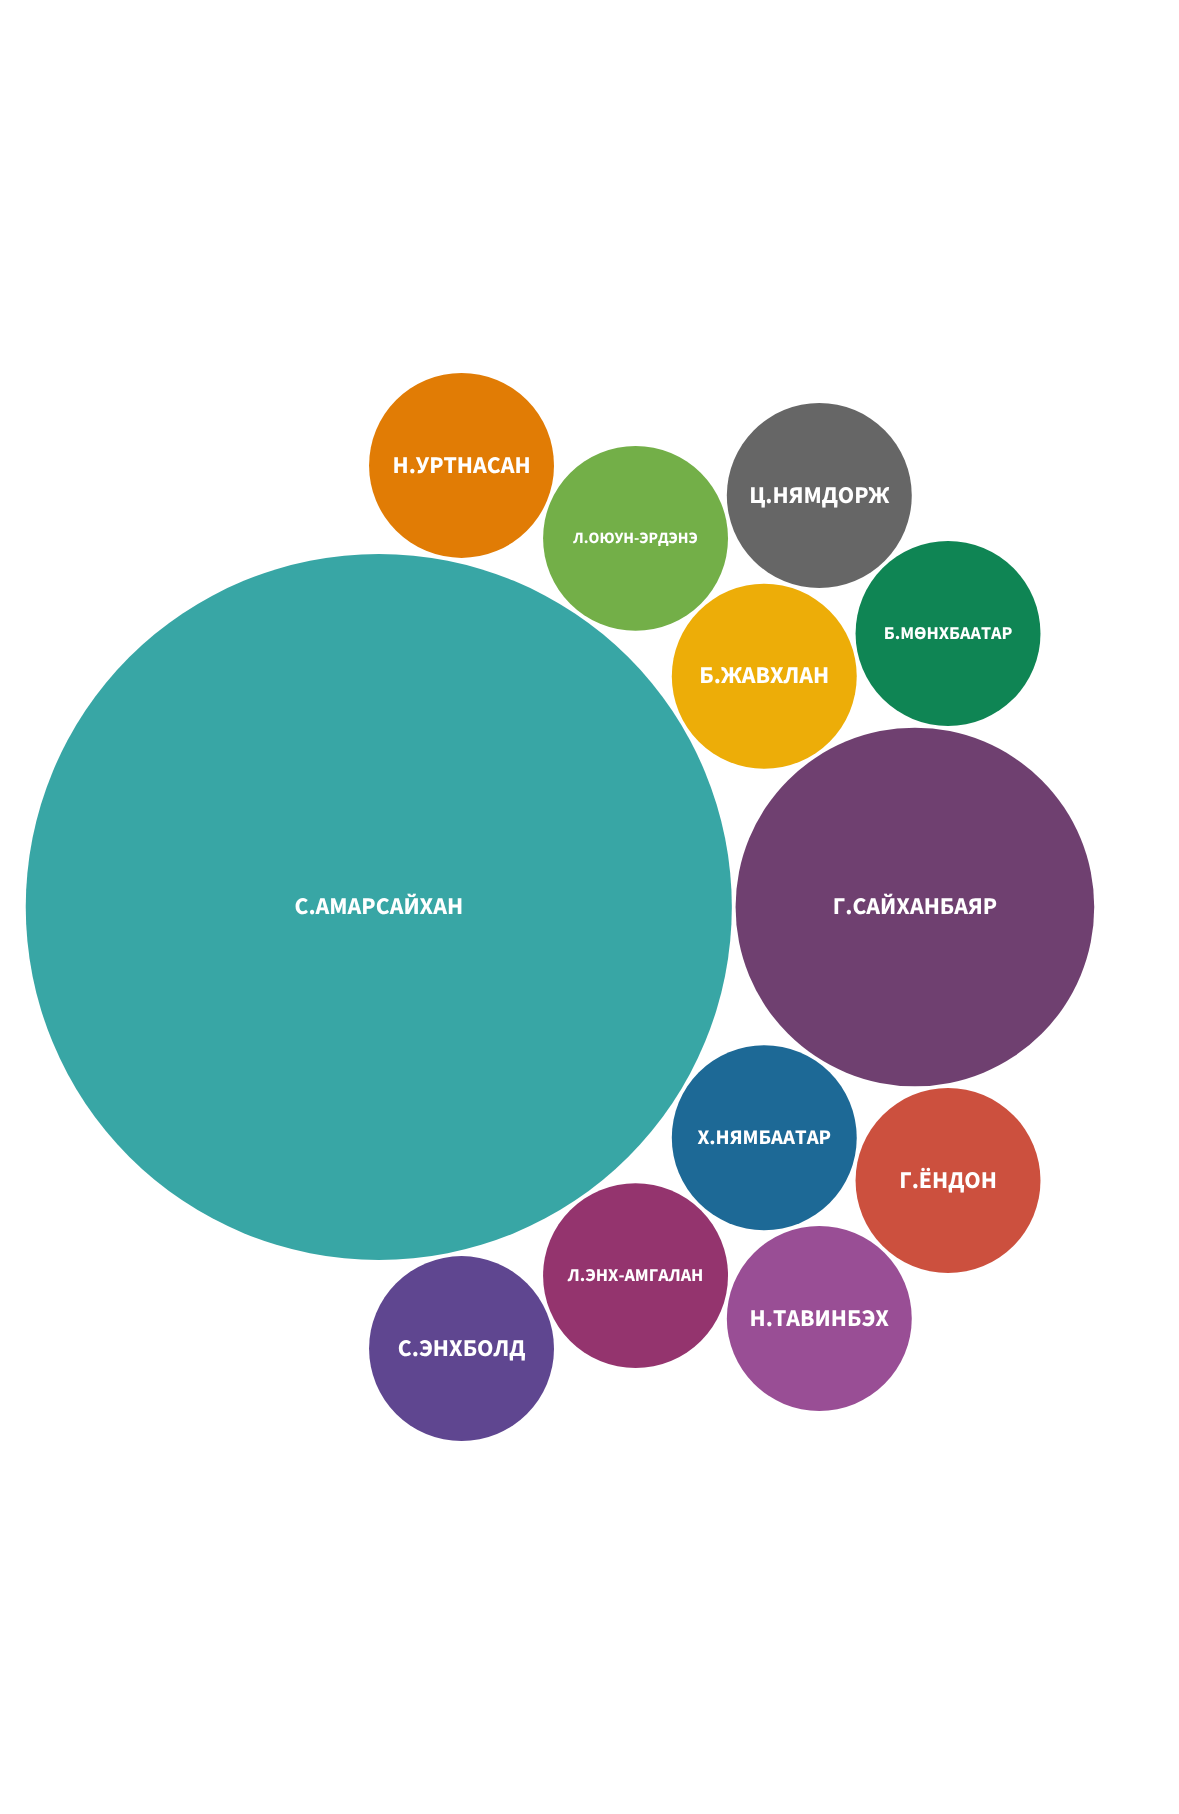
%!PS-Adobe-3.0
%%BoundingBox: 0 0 1179 1814
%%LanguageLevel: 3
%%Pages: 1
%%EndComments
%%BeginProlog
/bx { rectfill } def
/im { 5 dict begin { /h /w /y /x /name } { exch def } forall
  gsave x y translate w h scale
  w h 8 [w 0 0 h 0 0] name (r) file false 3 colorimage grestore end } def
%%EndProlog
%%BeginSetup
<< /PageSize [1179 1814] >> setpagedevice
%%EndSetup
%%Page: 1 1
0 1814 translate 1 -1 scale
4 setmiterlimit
1 setgray
0 0 1179 1814 bx
(image0.raw) 25 373 1070 1068 im
showpage
%%EOF
